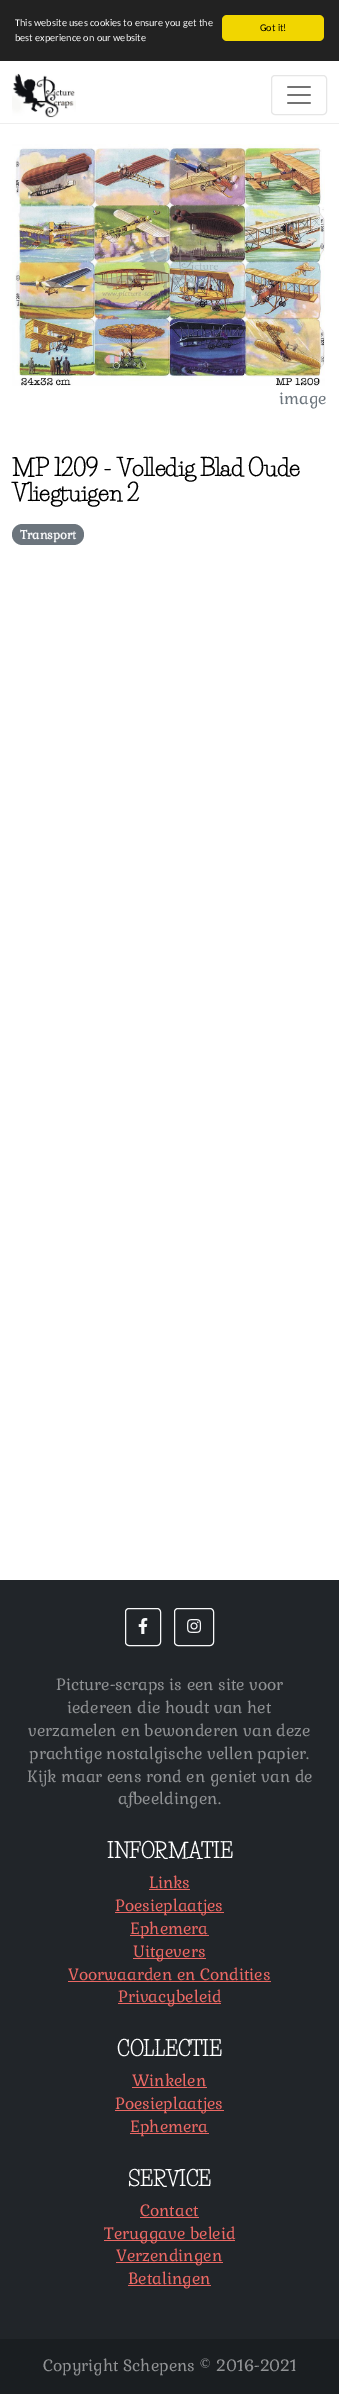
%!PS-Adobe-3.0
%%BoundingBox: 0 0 339 2394
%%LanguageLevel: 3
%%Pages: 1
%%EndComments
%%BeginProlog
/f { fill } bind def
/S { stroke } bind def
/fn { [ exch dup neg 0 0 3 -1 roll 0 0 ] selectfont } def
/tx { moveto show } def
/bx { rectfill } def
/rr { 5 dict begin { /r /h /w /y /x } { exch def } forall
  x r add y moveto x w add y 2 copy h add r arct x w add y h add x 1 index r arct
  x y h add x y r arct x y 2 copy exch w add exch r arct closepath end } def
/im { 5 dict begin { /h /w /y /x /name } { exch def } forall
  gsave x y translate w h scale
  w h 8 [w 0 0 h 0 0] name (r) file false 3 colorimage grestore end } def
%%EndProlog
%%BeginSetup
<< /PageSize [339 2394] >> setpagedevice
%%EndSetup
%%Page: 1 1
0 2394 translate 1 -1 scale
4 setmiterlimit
1 setgray
0 0 339 2394 bx
0.133 setgray
0 0 339 61 bx
/Carlito-Regular 10.25 fn
1 setgray
(This website uses cookies to ensure you get the) 15 26 tx
(best experience on our website) 15 41 tx
0.945 0.839 0 setrgbcolor
222 15 102 26 5 rr f
0 setgray
(Got it!) 260 31 tx
0.933 setgray
0 123 339 1 bx
(image0.raw) 12 73 64 45 im
0.902 setgray
271.5 75.5 55 39 3.5 rr S
(image1.raw) 287 86 24 18 im
(image2.raw) 12 144 313 242 im
/Gabriela-Regular 16 fn
0.424 0.459 0.49 setrgbcolor
(image) 279 404 tx
/LifeSavers-Bold 22.8 fn
0 setgray
(MP 1209 - Volledig Blad Oude) 12 476 tx
(Vliegtuigen 2) 12 501 tx
0.424 0.459 0.49 setrgbcolor
12 524 72 21 10.5 rr f
/Gabriela-Bold 12 fn
0.973 0.976 0.98 setrgbcolor
(Transport) 20 539 tx
0.129 0.145 0.161 setrgbcolor
0 1580 339 759 bx
0.973 0.976 0.98 setrgbcolor
125.5 1608.5 35 37 3.5 rr S
(image3.raw) 138 1618 10 16 im
174.5 1608.5 39 37 3.5 rr S
(image4.raw) 187 1619 15 14 im
/Gabriela-Regular 16 fn
0.565 0.573 0.58 setrgbcolor
(Picture-scraps is een site voor) 56 1690 tx
(iedereen die houdt van het) 67 1713 tx
(verzamelen en bewonderen van deze) 28 1736 tx
(prachtige nostalgische vellen papier.) 29 1759 tx
(Kijk maar eens rond en geniet van de) 27 1782 tx
(afbeeldingen.) 118 1804 tx
/LifeSavers-Bold 20 fn
1 setgray
(INFORMATIE) 107 1858 tx
/Gabriela-Regular 16 fn
0.922 0.408 0.392 setrgbcolor
(Links) 149 1888 tx
149 1889 41 1 bx
115 1912 109 1 bx
(Poesieplaatjes) 115 1911 tx
130 1935 79 1 bx
(Ephemera) 130 1934 tx
133 1958 73 1 bx
(Uitgevers) 133 1957 tx
(Voorwaarden en Condities) 68 1980 tx
68 1981 203 1 bx
118 2003 103 1 bx
(Privacybeleid) 118 2002 tx
/LifeSavers-Bold 20 fn
1 setgray
(COLLECTIE) 117 2056 tx
/Gabriela-Regular 16 fn
0.922 0.408 0.392 setrgbcolor
(Winkelen) 132 2086 tx
132 2087 75 1 bx
115 2110 109 1 bx
(Poesieplaatjes) 115 2109 tx
130 2133 79 1 bx
(Ephemera) 130 2132 tx
/LifeSavers-Bold 20 fn
1 setgray
(SERVICE) 128 2186 tx
/Gabriela-Regular 16 fn
0.922 0.408 0.392 setrgbcolor
(Contact) 140 2216 tx
140 2217 59 1 bx
104 2240 131 1 bx
(Teruggave beleid) 104 2239 tx
116 2262 107 1 bx
(Verzendingen) 116 2261 tx
128 2285 83 1 bx
(Betalingen) 128 2284 tx
0.102 0.118 0.129 setrgbcolor
0 2339 339 55 bx
0.565 0.573 0.58 setrgbcolor
(Copyright Schepens © 2016-2021) 43 2371 tx
showpage
%%EOF
